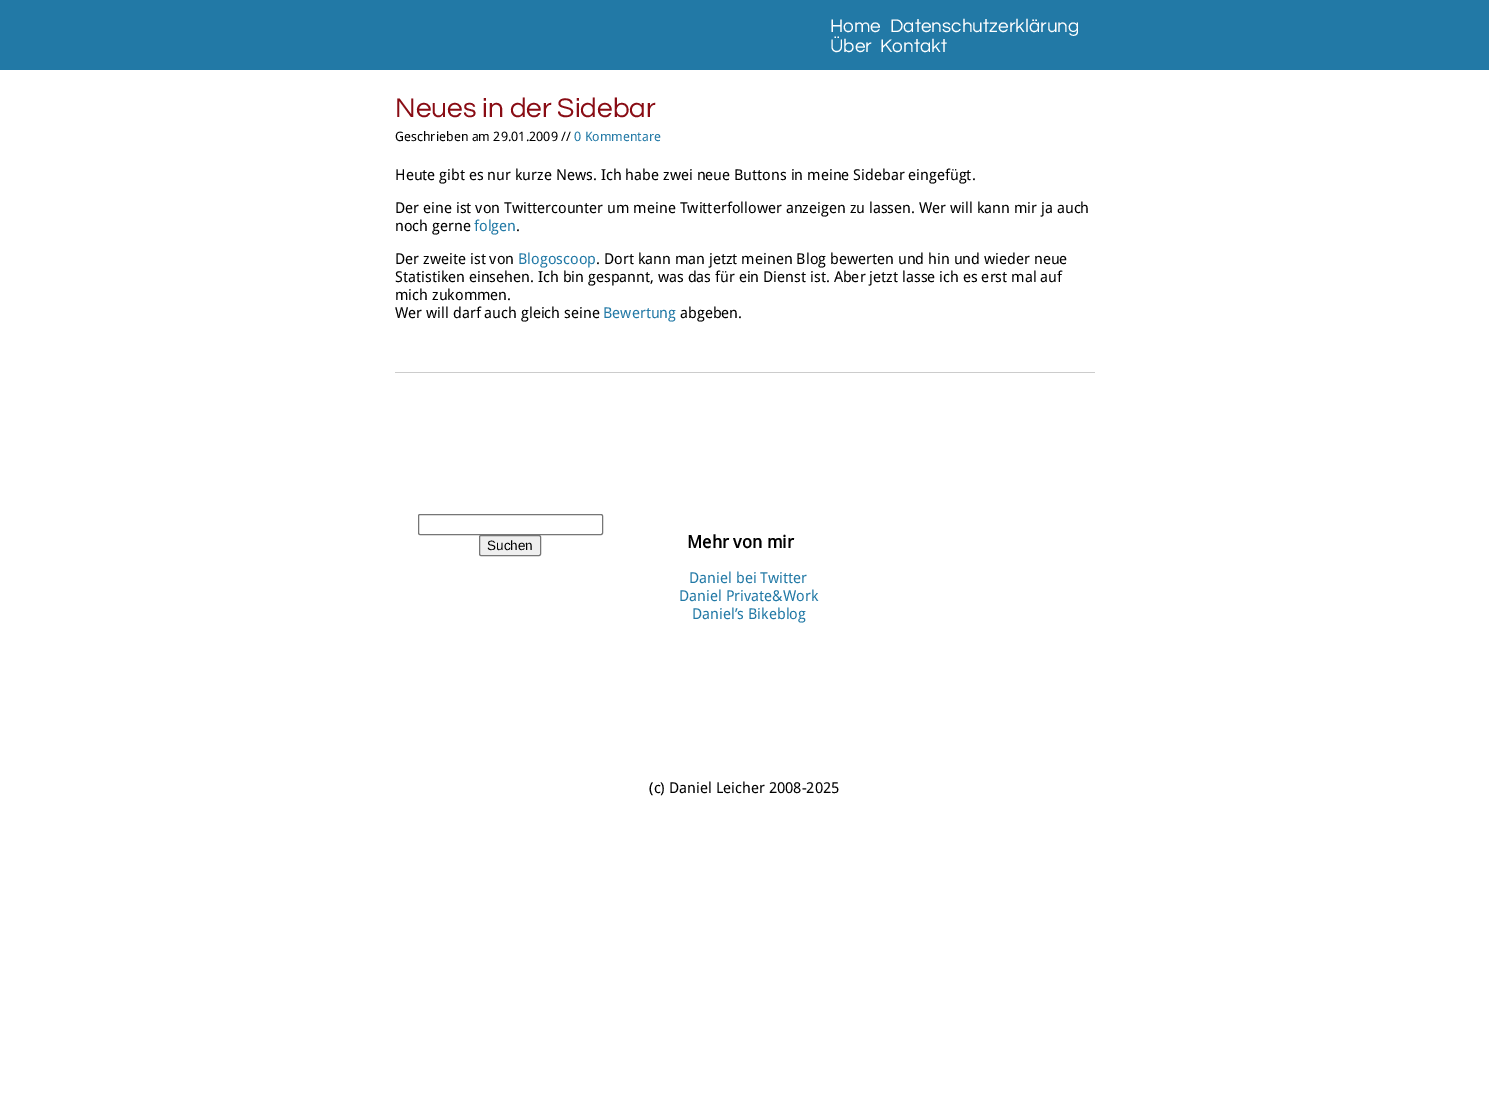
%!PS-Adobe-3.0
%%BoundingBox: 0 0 1489 1101
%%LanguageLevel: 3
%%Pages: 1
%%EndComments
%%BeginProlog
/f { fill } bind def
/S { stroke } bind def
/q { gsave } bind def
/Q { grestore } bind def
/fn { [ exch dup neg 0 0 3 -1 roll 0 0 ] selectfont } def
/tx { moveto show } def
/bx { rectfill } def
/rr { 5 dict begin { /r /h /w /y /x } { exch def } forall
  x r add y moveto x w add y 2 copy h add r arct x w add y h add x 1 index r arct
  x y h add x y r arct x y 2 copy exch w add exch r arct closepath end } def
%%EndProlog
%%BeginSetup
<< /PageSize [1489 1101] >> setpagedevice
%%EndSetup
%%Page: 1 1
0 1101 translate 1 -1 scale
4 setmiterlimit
1 setgray
0 0 1489 1101 bx
0.133 0.475 0.651 setrgbcolor
0 0 1489 70 bx
/Questrial-Regular 19 fn
1 setgray
(Home) 830 32 tx
(Datenschutzerklärung) 890 32 tx
(Über) 830 52 tx
(Kontakt) 880 52 tx
/Questrial-Regular 28 fn
0.537 0.047 0.078 setrgbcolor
(Neues in der Sidebar) 395 117 tx
/DroidSans-Regular 13 fn
0 setgray
(Geschrieben am 29.01.2009 //) 395 141 tx
0.133 0.475 0.651 setrgbcolor
(0 Kommentare) 574 141 tx
/DroidSans-Regular 15 fn
0 setgray
(Heute gibt es nur kurze News. Ich habe zwei neue Buttons in meine Sidebar eingefügt.) 395 180 tx
(Der eine ist von Twittercounter um meine Twitterfollower anzeigen zu lassen. Wer will kann mir ja auch) 395 213 tx
(noch gerne) 395 231 tx
0.133 0.475 0.651 setrgbcolor
(folgen) 474 231 tx
0 setgray
(.) 516 231 tx
(Der zweite ist von) 395 264 tx
0.133 0.475 0.651 setrgbcolor
(Blogoscoop) 518 264 tx
0 setgray
(. Dort kann man jetzt meinen Blog bewerten und hin und wieder neue) 596 264 tx
(Statistiken einsehen. Ich bin gespannt, was das für ein Dienst ist. Aber jetzt lasse ich es erst mal auf) 395 282 tx
(mich zukommen.) 395 300 tx
(Wer will darf auch gleich seine) 395 318 tx
0.133 0.475 0.651 setrgbcolor
(Bewertung) 603 318 tx
0 setgray
(abgeben.) 680 318 tx
0.8 setgray
395 372 700 1 bx
0.463 setgray
418.5 514.5 184 20 1.5 rr S
0.937 setgray
479.5 535.5 61 20 1.5 rr q f Q
0.463 setgray
S
/LiberationSans-Regular 13.5 fn
0 setgray
(Suchen) 487 550 tx
/DroidSans-Bold 17.5 fn
(Mehr von mir) 687 548 tx
/DroidSans-Regular 15 fn
0.133 0.475 0.651 setrgbcolor
(Daniel bei Twitter) 689 583 tx
(Daniel Private&Work) 679 601 tx
(Daniel’s Bikeblog) 692 619 tx
0 setgray
(\(c\) Daniel Leicher 2008-2025) 649 793 tx
showpage
%%EOF
